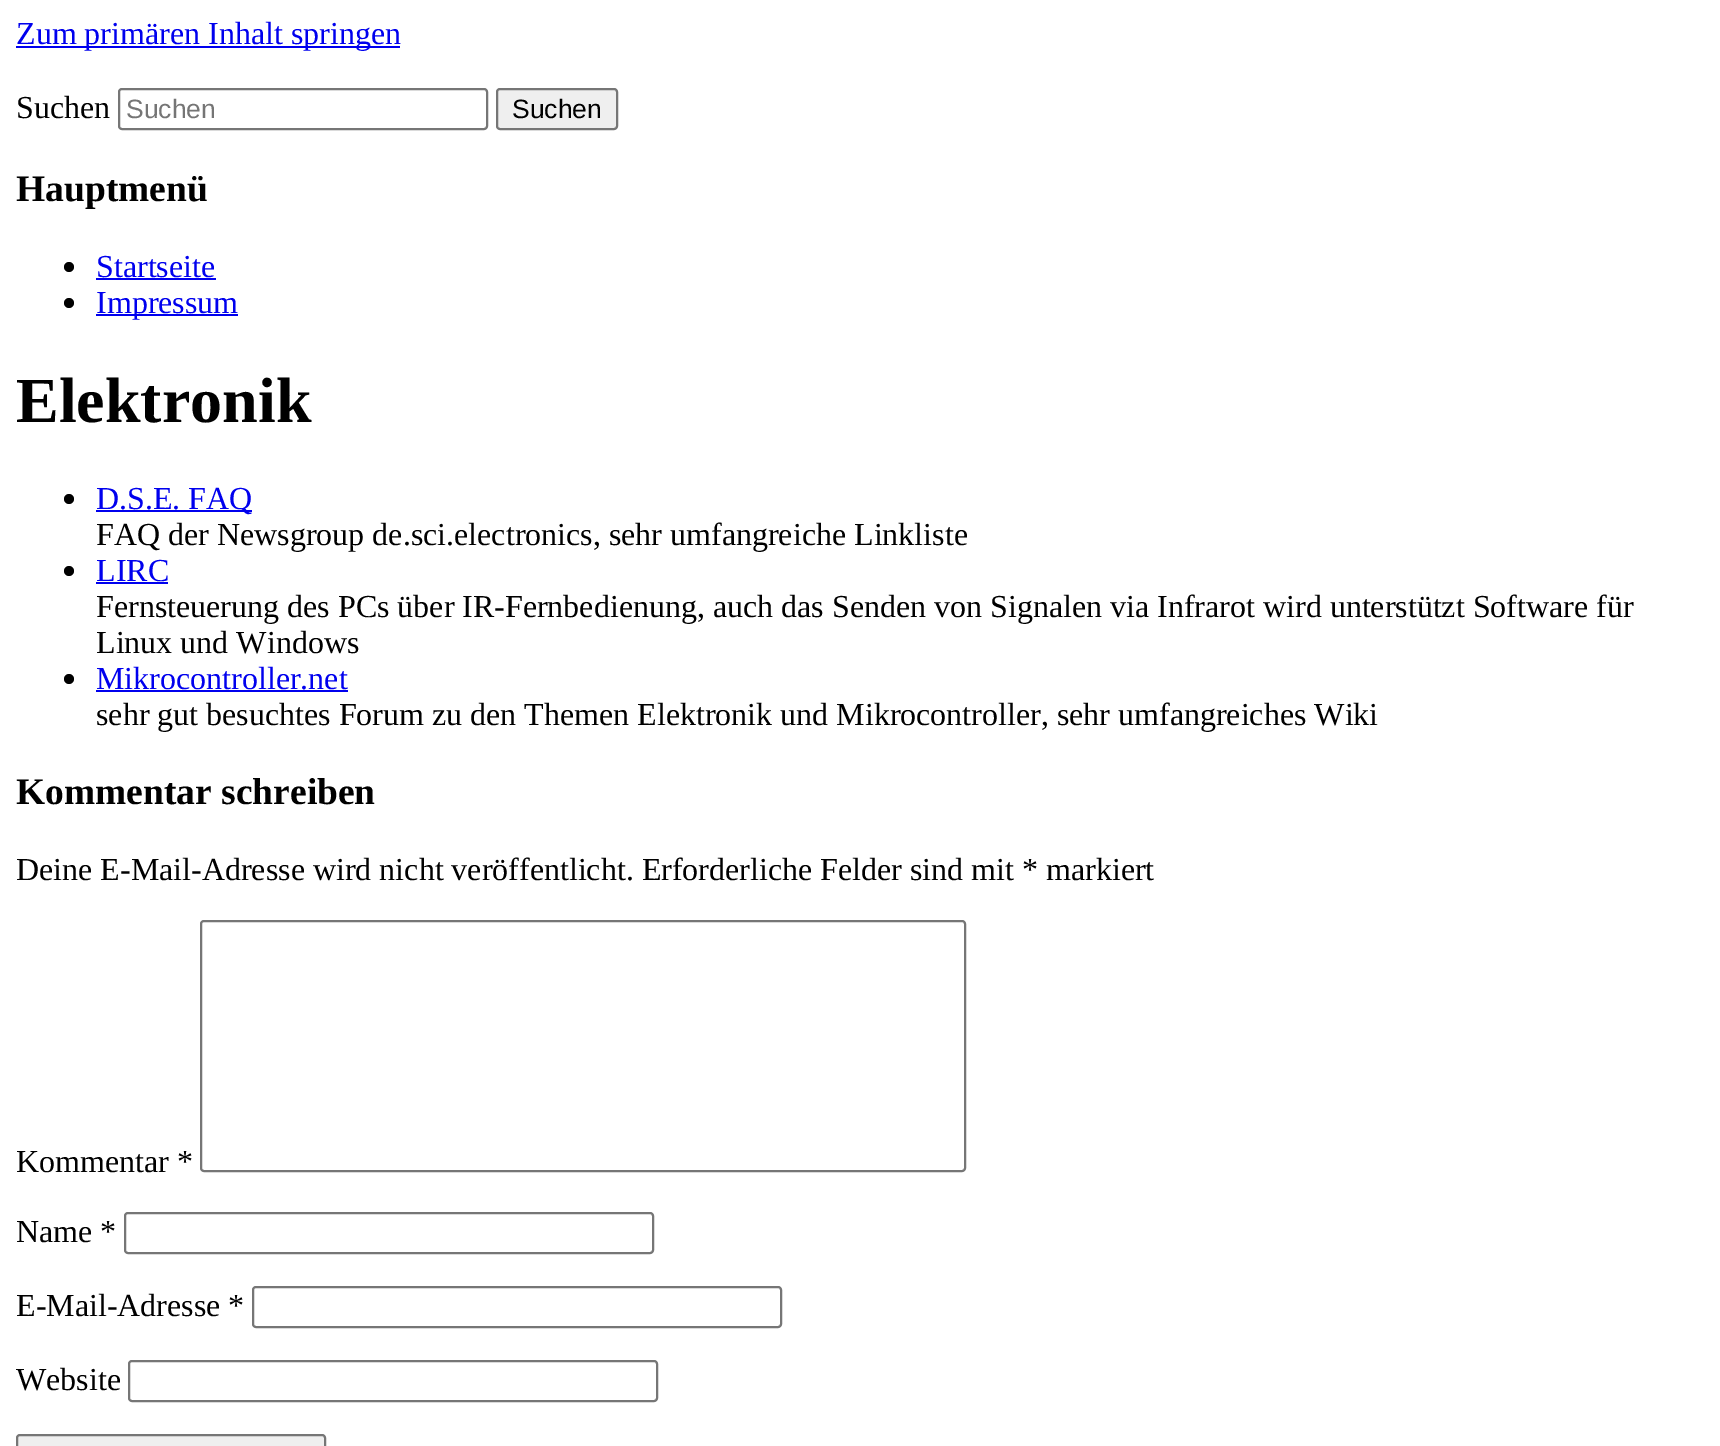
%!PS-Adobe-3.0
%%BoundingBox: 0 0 1720 1446
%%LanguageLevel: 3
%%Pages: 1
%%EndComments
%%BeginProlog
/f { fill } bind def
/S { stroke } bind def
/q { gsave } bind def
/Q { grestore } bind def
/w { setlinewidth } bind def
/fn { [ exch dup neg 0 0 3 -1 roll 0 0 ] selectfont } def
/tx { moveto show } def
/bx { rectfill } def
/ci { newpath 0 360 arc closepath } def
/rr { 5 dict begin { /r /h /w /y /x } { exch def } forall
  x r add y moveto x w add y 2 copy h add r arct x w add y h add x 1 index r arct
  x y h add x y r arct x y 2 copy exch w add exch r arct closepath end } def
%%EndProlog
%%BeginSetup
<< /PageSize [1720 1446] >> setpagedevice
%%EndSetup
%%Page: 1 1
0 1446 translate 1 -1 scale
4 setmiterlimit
1 setgray
0 0 1720 1446 bx
0 0 0.933 setrgbcolor
16 46 384 2 bx
/LiberationSerif-Regular 32 fn
(Zum primären Inhalt springen) 16 44 tx
0 setgray
(Suchen) 16 118 tx
0.463 setgray
2 w
119 89 368 40 3 rr S
/LiberationSans-Regular 26.5 fn
0.459 setgray
(Suchen) 126 118 tx
0.937 setgray
497 89 120 40 3 rr q f Q
0.463 setgray
S
0 setgray
(Suchen) 512 118 tx
/LiberationSerif-Bold 37.5 fn
(Hauptmenü) 16 201 tx
69 267 5 ci f
/LiberationSerif-Regular 32 fn
0 0 0.933 setrgbcolor
(Startseite) 96 277 tx
96 278 120 2 bx
0 setgray
69 303 5 ci f
0 0 0.933 setrgbcolor
96 314 142 2 bx
(Impressum) 96 313 tx
/LiberationSerif-Bold 64 fn
0 setgray
(Elektronik) 16 422 tx
69 499 5 ci f
0 0 0.933 setrgbcolor
96 510 156 2 bx
/LiberationSerif-Regular 32 fn
(D.S.E. FAQ) 96 509 tx
0 setgray
(FAQ der Newsgroup de.sci.electronics, sehr umfangreiche Linkliste) 96 545 tx
69 571 5 ci f
0 0 0.933 setrgbcolor
(LIRC) 96 581 tx
96 582 72 2 bx
0 setgray
(Fernsteuerung des PCs über IR-Fernbedienung, auch das Senden von Signalen via Infrarot wird unterstützt Software für) 96 617 tx
(Linux und Windows) 96 653 tx
69 679 5 ci f
0 0 0.933 setrgbcolor
(Mikrocontroller.net) 96 689 tx
96 690 252 2 bx
0 setgray
(sehr gut besuchtes Forum zu den Themen Elektronik und Mikrocontroller, sehr umfangreiches Wiki) 96 725 tx
/LiberationSerif-Bold 37.5 fn
(Kommentar schreiben) 16 804 tx
/LiberationSerif-Regular 32 fn
(Deine E-Mail-Adresse wird nicht veröffentlicht. Erforderliche Felder sind mit * markiert) 16 880 tx
(Kommentar *) 16 1172 tx
0.463 setgray
201 921 764 250 3 rr S
0 setgray
(Name *) 16 1242 tx
0.463 setgray
125 1213 528 40 3 rr S
0 setgray
(E-Mail-Adresse *) 16 1316 tx
0.463 setgray
253 1287 528 40 3 rr S
0 setgray
(Website) 16 1390 tx
0.463 setgray
129 1361 528 40 3 rr S
0.937 setgray
17 1435 308 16 3 rr q f Q
0.463 setgray
S
showpage
%%EOF
